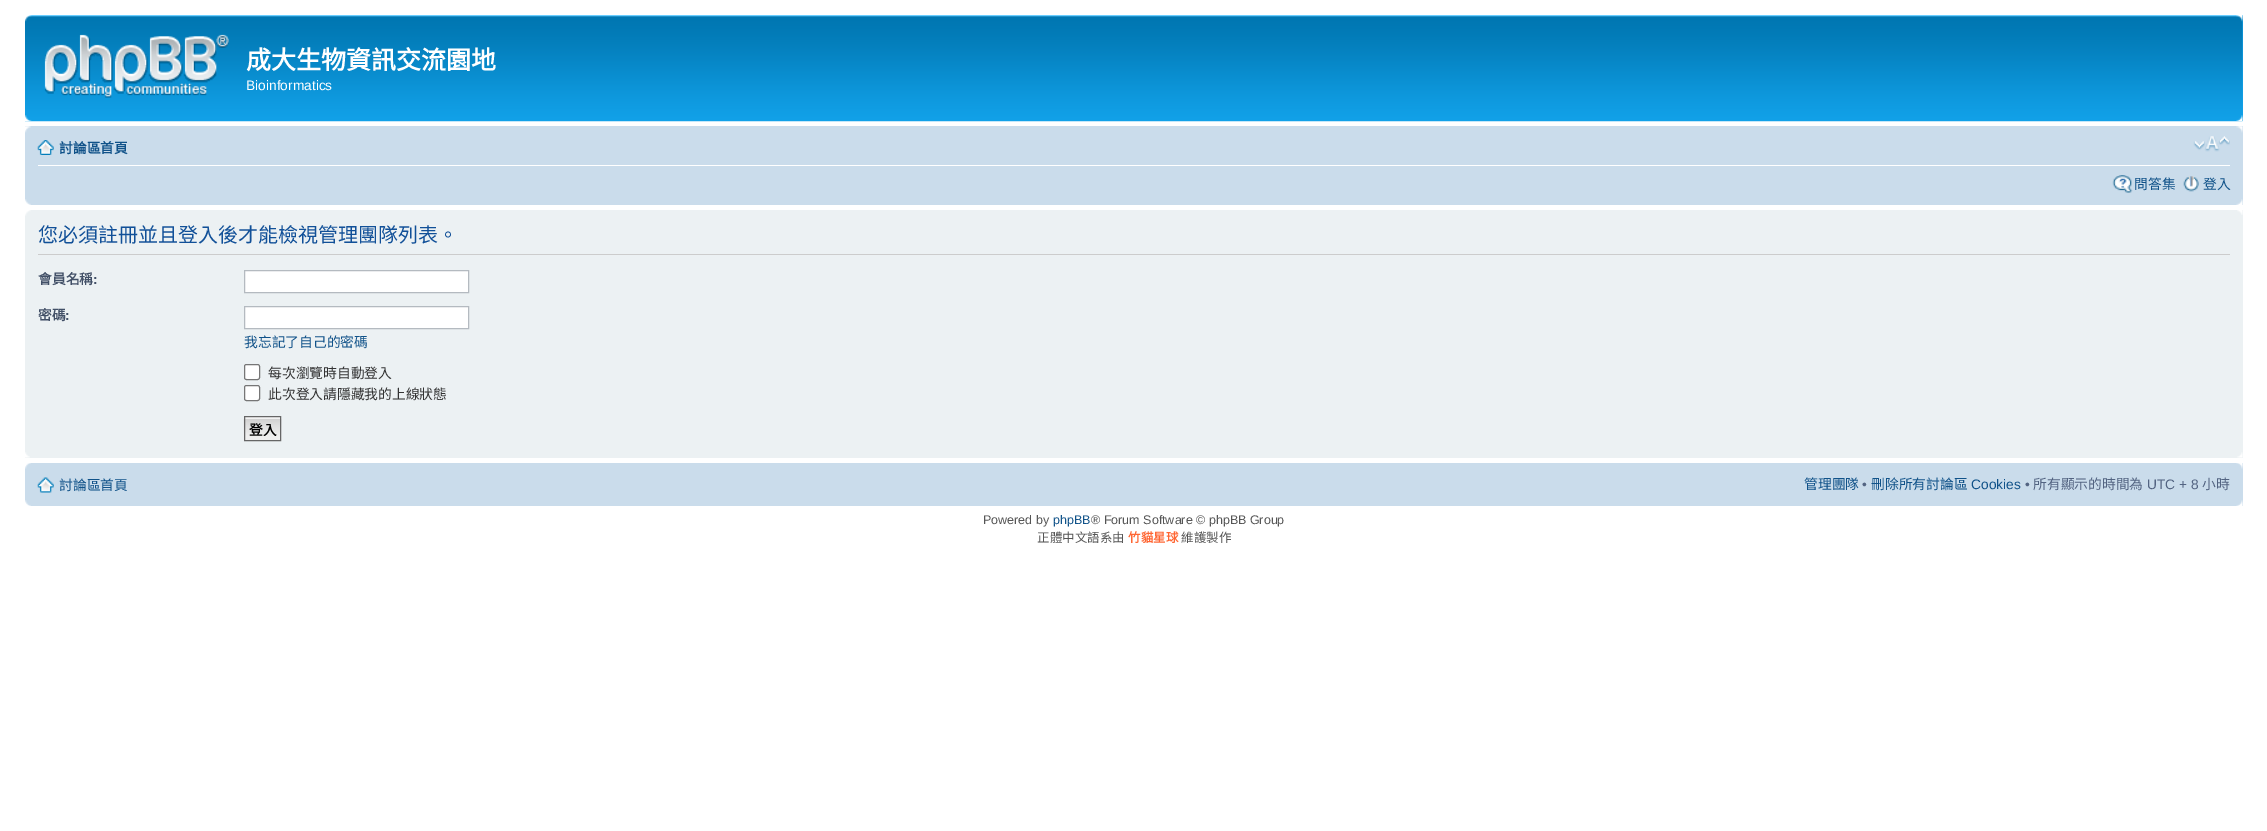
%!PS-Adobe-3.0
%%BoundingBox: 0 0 2267 831
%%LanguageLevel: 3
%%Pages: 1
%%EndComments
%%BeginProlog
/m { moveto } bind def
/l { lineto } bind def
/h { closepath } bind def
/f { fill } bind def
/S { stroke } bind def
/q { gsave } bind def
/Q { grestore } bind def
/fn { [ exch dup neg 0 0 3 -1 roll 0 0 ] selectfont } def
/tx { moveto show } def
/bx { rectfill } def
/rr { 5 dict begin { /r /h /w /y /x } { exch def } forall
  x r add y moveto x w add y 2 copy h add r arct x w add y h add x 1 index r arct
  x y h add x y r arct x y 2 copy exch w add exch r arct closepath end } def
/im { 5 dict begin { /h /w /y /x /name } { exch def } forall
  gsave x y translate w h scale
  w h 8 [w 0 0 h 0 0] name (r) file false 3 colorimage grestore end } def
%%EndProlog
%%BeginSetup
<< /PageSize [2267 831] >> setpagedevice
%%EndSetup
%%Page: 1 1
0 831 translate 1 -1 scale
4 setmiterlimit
1 setgray
0 0 2267 831 bx
0.071 0.639 0.922 setrgbcolor
2242 15 1 106 bx
(image0.raw) 25 15 2218 107 im
(image1.raw) 25 15 7 7 im
(image2.raw) 2236 15 7 7 im
(image3.raw) 44 34 185 64 im
/NotoSansCJKTC-Bold 25 fn
1 setgray
(成大生物資訊交流園地) 246 69 tx
/LiberationSans-Regular 13.75 fn
(Bioinformatics) 246 90 tx
(image4.raw) 25 115 7 7 im
(image5.raw) 2236 115 7 7 im
0.792 0.863 0.922 setrgbcolor
25 126 2218 79 bx
(image6.raw) 25 126 6 7 im
(image7.raw) 2236 126 7 7 im
1 setgray
38 165 2192 1 bx
(image8.raw) 37 140 17 15 im
/NotoSansCJKTC-Bold 13.75 fn
0.063 0.322 0.537 setrgbcolor
(討論區首頁) 59 153 tx
(image9.raw) 2193 136 37 16 im
(image10.raw) 2112 175 21 18 im
/NotoSansCJKTC-Regular 13.75 fn
(問答集) 2134 189 tx
(image11.raw) 2183 176 16 16 im
(登入) 2203 189 tx
(image12.raw) 25 199 6 6 im
(image13.raw) 2236 199 7 6 im
0.925 0.945 0.953 setrgbcolor
25 210 2218 248 bx
(image14.raw) 25 210 6 6 im
(image15.raw) 2237 210 6 5 im
0.8 setgray
38 254 2192 1 bx
/NotoSansCJKTC-Regular 20 fn
0.067 0.314 0.596 setrgbcolor
(您必須註冊並且登入後才能檢視管理團隊列表。) 38 242 tx
/NotoSansCJKTC-Bold 13.75 fn
0.259 0.314 0.404 setrgbcolor
(會員名稱) 38 284 tx
/LiberationSans-Bold 13.75 fn
(:) 93 284 tx
1 setgray
244.5 270.5 m 468.5 270.5 l 468.5 292.5 l 244.5 292.5 l h q f Q
0.706 0.729 0.753 setrgbcolor
S
/NotoSansCJKTC-Bold 13.75 fn
0.259 0.314 0.404 setrgbcolor
(密碼) 38 320 tx
/LiberationSans-Bold 13.75 fn
(:) 65 320 tx
1 setgray
244.5 306.5 m 468.5 306.5 l 468.5 328.5 l 244.5 328.5 l h q f Q
0.706 0.729 0.753 setrgbcolor
S
/NotoSansCJKTC-Regular 13.75 fn
0.063 0.322 0.537 setrgbcolor
(我忘記了自己的密碼) 244 347 tx
1 setgray
244.5 364.5 15 15 2 rr q f Q
0.463 setgray
S
0.2 setgray
(每次瀏覽時自動登入) 268 378 tx
1 setgray
244.5 385.5 15 15 2 rr q f Q
0.463 setgray
S
0.2 setgray
(此次登入請隱藏我的上線狀態) 268 399 tx
0.98 setgray
245 417 35 1 bx
(image16.raw) 243 418 39 23 im
0.4 setgray
244.5 416.5 36 24 rectstroke
/NotoSansCJKTC-Bold 13.75 fn
0 setgray
(登入) 249 435 tx
(image17.raw) 25 452 5 6 im
(image18.raw) 2237 452 6 6 im
0.792 0.863 0.922 setrgbcolor
25 463 2218 43 bx
(image19.raw) 25 463 6 6 im
(image20.raw) 2236 463 7 6 im
(image21.raw) 37 477 17 16 im
/NotoSansCJKTC-Regular 13.75 fn
0.063 0.322 0.537 setrgbcolor
(討論區首頁) 59 490 tx
(管理團隊) 1804 489 tx
/LiberationSans-Regular 13.75 fn
0.325 0.392 0.51 setrgbcolor
(•) 1862 489 tx
/NotoSansCJKTC-Regular 13.75 fn
0.063 0.322 0.537 setrgbcolor
(刪除所有討論區) 1871 489 tx
/LiberationSans-Regular 13.75 fn
(Cookies) 1971 489 tx
0.325 0.392 0.51 setrgbcolor
(•) 2025 489 tx
/NotoSansCJKTC-Regular 13.75 fn
(所有顯示的時間為) 2033 489 tx
/LiberationSans-Regular 13.75 fn
(UTC + 8) 2147 489 tx
/NotoSansCJKTC-Regular 13.75 fn
(小時) 2202 489 tx
(image22.raw) 25 500 6 6 im
(image23.raw) 2236 500 7 6 im
/LiberationSans-Regular 12.5 fn
0.333 setgray
(Powered by) 983 524 tx
0.063 0.322 0.537 setrgbcolor
(phpBB) 1053 524 tx
0.333 setgray
(® Forum Software © phpBB Group) 1091 524 tx
/NotoSansCJKTC-Regular 12.5 fn
(正體中文語系由) 1037 542 tx
/NotoSansCJKTC-Bold 12.5 fn
1 0.4 0.2 setrgbcolor
(竹貓星球) 1128 542 tx
/NotoSansCJKTC-Regular 12.5 fn
0.333 setgray
(維護製作) 1181 542 tx
showpage
%%EOF
